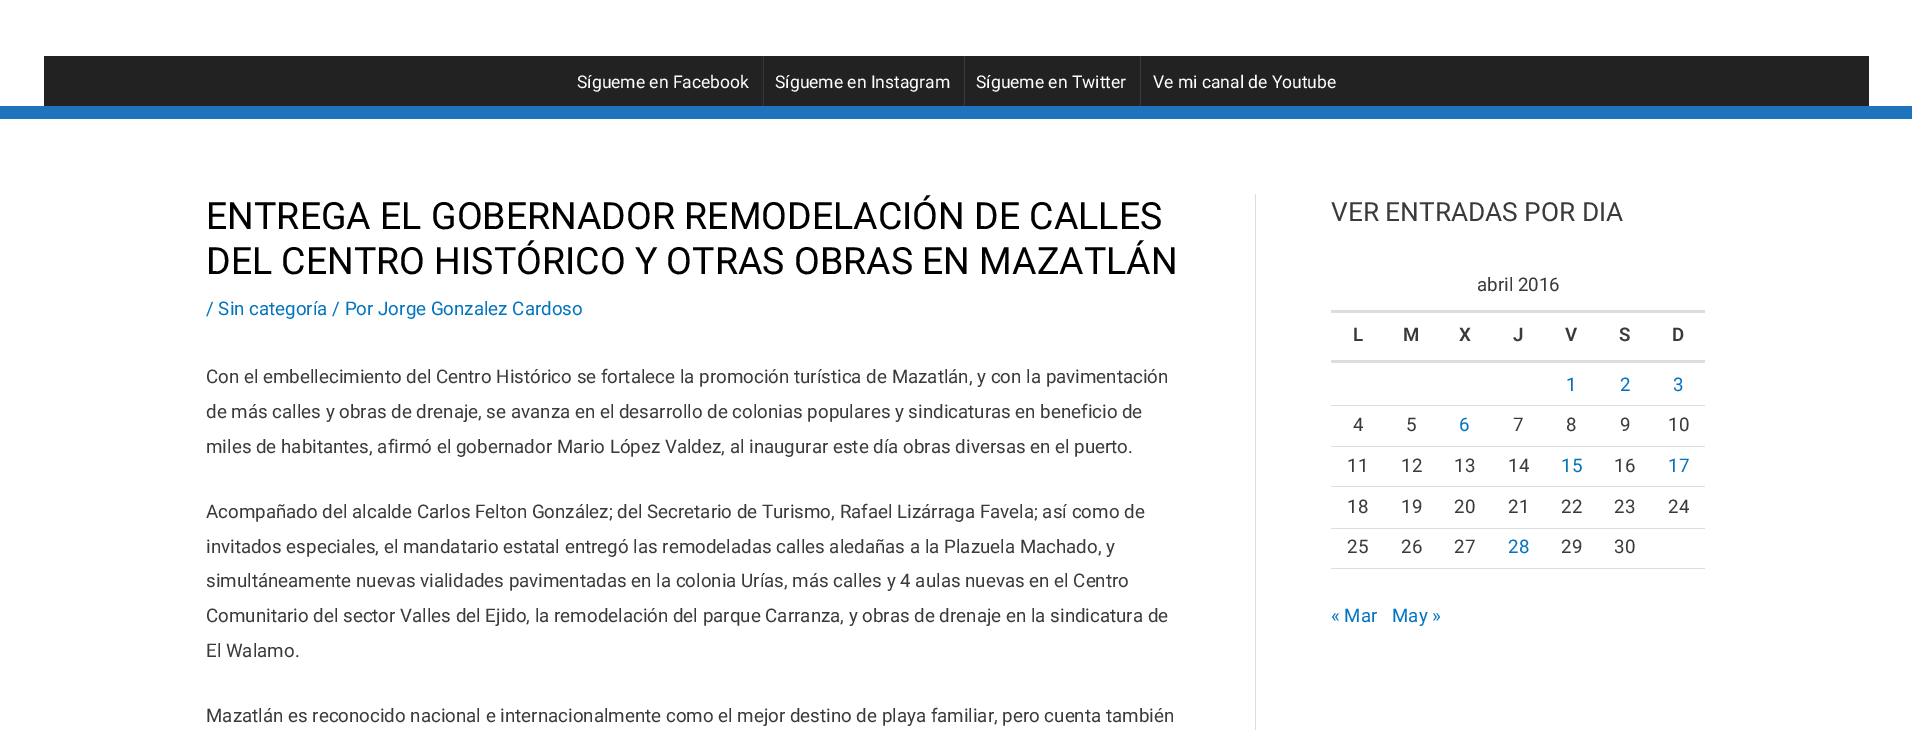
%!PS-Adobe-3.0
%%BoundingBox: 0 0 1912 730
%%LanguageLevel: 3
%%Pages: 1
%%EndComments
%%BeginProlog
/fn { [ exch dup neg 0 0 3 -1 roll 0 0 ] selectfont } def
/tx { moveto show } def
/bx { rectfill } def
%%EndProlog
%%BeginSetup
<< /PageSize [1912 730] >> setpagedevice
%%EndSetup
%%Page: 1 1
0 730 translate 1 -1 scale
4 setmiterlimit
1 setgray
0 0 1912 730 bx
0.118 0.451 0.745 setrgbcolor
0 106 1912 13 bx
0.133 setgray
44 56 1825 50 bx
/Roboto-Regular 17.5 fn
1 setgray
(Sígueme en Facebook) 577 88 tx
0.22 setgray
763 56 1 50 bx
0.125 0.141 0.2 setrgbcolor
761 56 1 50 bx
1 setgray
(Sígueme en Instagram) 775 88 tx
0.22 setgray
964 56 1 50 bx
0.125 0.141 0.2 setrgbcolor
963 56 1 50 bx
1 setgray
(Sígueme en Twitter) 976 88 tx
0.22 setgray
1140 56 1 50 bx
0.125 0.141 0.2 setrgbcolor
1139 56 1 50 bx
1 setgray
(Ve mi canal de Youtube) 1153 88 tx
0.867 setgray
1255 194 1 536 bx
/Roboto-Regular 37.5 fn
0 setgray
(ENTREGA EL GOBERNADOR REMODELACIÓN DE CALLES) 206 229 tx
(DEL CENTRO HISTÓRICO Y OTRAS OBRAS EN MAZATLÁN) 206 274 tx
/Roboto-Regular 18.75 fn
0.008 0.455 0.745 setrgbcolor
(/ Sin categoría / Por Jorge Gonzalez Cardoso) 206 315 tx
0.227 setgray
(Con el embellecimiento del Centro Histórico se fortalece la promoción turística de Mazatlán, y con la pavimentación) 206 383 tx
(de más calles y obras de drenaje, se avanza en el desarrollo de colonias populares y sindicaturas en beneficio de) 206 418 tx
(miles de habitantes, afirmó el gobernador Mario López Valdez, al inaugurar este día obras diversas en el puerto.) 206 453 tx
(Acompañado del alcalde Carlos Felton González; del Secretario de Turismo, Rafael Lizárraga Favela; así como de) 206 518 tx
(invitados especiales, el mandatario estatal entregó las remodeladas calles aledañas a la Plazuela Machado, y) 206 553 tx
(simultáneamente nuevas vialidades pavimentadas en la colonia Urías, más calles y 4 aulas nuevas en el Centro) 206 587 tx
(Comunitario del sector Valles del Ejido, la remodelación del parque Carranza, y obras de drenaje en la sindicatura de) 206 622 tx
(El Walamo.) 206 657 tx
(Mazatlán es reconocido nacional e internacionalmente como el mejor destino de playa familiar, pero cuenta también) 206 722 tx
/Roboto-Regular 26.25 fn
(VER ENTRADAS POR DIA) 1331 221 tx
/Roboto-Regular 18.75 fn
(abril 2016) 1477 291 tx
0.867 setgray
1331 310 374 3 bx
1331 360 374 3 bx
/Roboto-SemiBold 18.75 fn
0.227 setgray
(L) 1353 341 tx
(M) 1403 341 tx
(X) 1459 341 tx
(J) 1513 341 tx
(V) 1565 341 tx
(S) 1619 341 tx
(D) 1672 341 tx
/Roboto-Regular 18.75 fn
0.008 0.455 0.745 setrgbcolor
(1) 1566 391 tx
(2) 1620 391 tx
(3) 1673 391 tx
0.867 setgray
1331 405 374 1 bx
1331 446 374 1 bx
0.227 setgray
(4) 1353 431 tx
(5) 1406 431 tx
0.008 0.455 0.745 setrgbcolor
(6) 1459 431 tx
0.227 setgray
(7) 1513 431 tx
(8) 1566 431 tx
(9) 1620 431 tx
(10) 1668 431 tx
0.867 setgray
1331 486 374 1 bx
0.227 setgray
(11) 1347 472 tx
(12) 1401 472 tx
(13) 1454 472 tx
(14) 1508 472 tx
0.008 0.455 0.745 setrgbcolor
(15) 1561 472 tx
0.227 setgray
(16) 1614 472 tx
0.008 0.455 0.745 setrgbcolor
(17) 1668 472 tx
0.867 setgray
1331 528 374 1 bx
0.227 setgray
(18) 1347 513 tx
(19) 1401 513 tx
(20) 1454 513 tx
(21) 1508 513 tx
(22) 1561 513 tx
(23) 1614 513 tx
(24) 1668 513 tx
0.867 setgray
1331 568 374 1 bx
0.227 setgray
(25) 1347 553 tx
(26) 1401 553 tx
(27) 1454 553 tx
0.008 0.455 0.745 setrgbcolor
(28) 1508 553 tx
0.227 setgray
(29) 1561 553 tx
(30) 1614 553 tx
0.008 0.455 0.745 setrgbcolor
(« Mar) 1331 622 tx
(May ») 1392 622 tx
showpage
%%EOF
